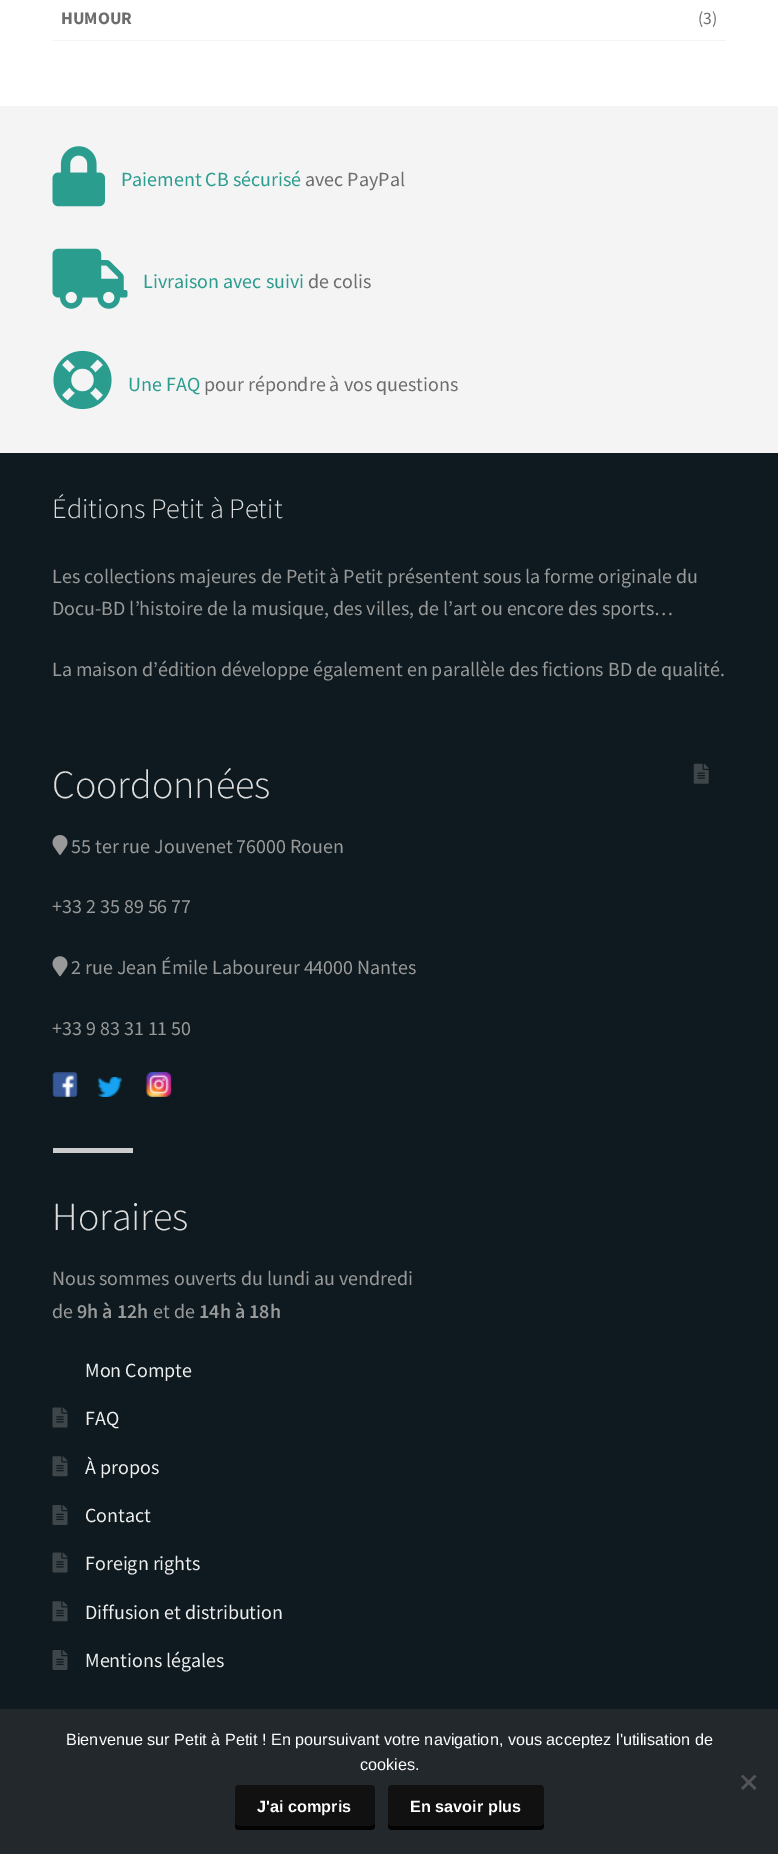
%!PS-Adobe-3.0
%%BoundingBox: 0 0 778 1854
%%LanguageLevel: 3
%%Pages: 1
%%EndComments
%%BeginProlog
/m { moveto } bind def
/l { lineto } bind def
/c { curveto } bind def
/h { closepath } bind def
/f { fill } bind def
/fn { [ exch dup neg 0 0 3 -1 roll 0 0 ] selectfont } def
/tx { moveto show } def
/bx { rectfill } def
/rr { 5 dict begin { /r /h /w /y /x } { exch def } forall
  x r add y moveto x w add y 2 copy h add r arct x w add y h add x 1 index r arct
  x y h add x y r arct x y 2 copy exch w add exch r arct closepath end } def
/im { 5 dict begin { /h /w /y /x /name } { exch def } forall
  gsave x y translate w h scale
  w h 8 [w 0 0 h 0 0] name (r) file false 3 colorimage grestore end } def
%%EndProlog
%%BeginSetup
<< /PageSize [778 1854] >> setpagedevice
%%EndSetup
%%Page: 1 1
0 1854 translate 1 -1 scale
4 setmiterlimit
1 setgray
0 0 778 1854 bx
0.957 setgray
53 40 673 1 bx
/SourceSansPro-Bold 17.5 fn
0.427 setgray
(HUMOUR) 61 24 tx
/SourceSansPro-Regular 17.5 fn
(\(3\)) 698 24 tx
0.957 setgray
0 106 778 347 bx
(image0.raw) 52 146 53 61 im
/SourceSansPro-Regular 20 fn
0.165 0.616 0.561 setrgbcolor
(Paiement CB sécurisé) 121 186 tx
0.427 setgray
(avec PayPal) 305 186 tx
(image1.raw) 52 248 76 61 im
0.165 0.616 0.561 setrgbcolor
(Livraison avec suivi) 143 288 tx
0.427 setgray
(de colis) 308 288 tx
(image2.raw) 53 350 59 60 im
0.165 0.616 0.561 setrgbcolor
(Une FAQ) 128 391 tx
0.427 setgray
(pour répondre à vos questions) 204 391 tx
0.055 0.102 0.122 setrgbcolor
0 453 778 1256 bx
/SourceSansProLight-Light 28.25 fn
0.867 setgray
(Éditions Petit à Petit) 52 518 tx
/SourceSansPro-Regular 20 fn
0.6 setgray
(Les collections majeures de Petit à Petit présentent sous la forme originale du) 52 583 tx
(Docu-BD l’histoire de la musique, des villes, de l’art ou encore des sports…) 52 615 tx
(La maison d’édition développe également en parallèle des fictions BD de qualité.) 52 676 tx
/SourceSansProLight-Light 40 fn
0.867 setgray
(Coordonnées) 52 798 tx
(image3.raw) 52 835 16 20 im
/SourceSansPro-Regular 20 fn
0.6 setgray
(55 ter rue Jouvenet 76000 Rouen) 71 853 tx
(+33 2 35 89 56 77) 52 913 tx
(image4.raw) 52 956 16 21 im
(2 rue Jean Émile Laboureur 44000 Nantes) 71 974 tx
(+33 9 83 31 11 50) 52 1035 tx
(image5.raw) 52 1072 26 25 im
(image6.raw) 97 1077 26 20 im
(image7.raw) 146 1072 26 25 im
0.8 setgray
53 1148 80 5 bx
/SourceSansProLight-Light 40 fn
0.867 setgray
(Horaires) 52 1230 tx
/SourceSansPro-Regular 20 fn
0.6 setgray
(Nous sommes ouverts du lundi au vendredi) 52 1285 tx
(de) 52 1318 tx
/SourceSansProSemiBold-SemiBold 20 fn
(9h à 12h) 77 1318 tx
/SourceSansPro-Regular 20 fn
(et de) 153 1318 tx
/SourceSansProSemiBold-SemiBold 20 fn
(14h à 18h) 199 1318 tx
(image8.raw) 693 763 16 21 im
/SourceSansPro-Regular 20 fn
0.933 setgray
(Mon Compte) 85 1377 tx
(image9.raw) 52 1407 16 21 im
(FAQ) 85 1425 tx
(image10.raw) 52 1456 16 21 im
(À propos) 85 1474 tx
(image11.raw) 52 1505 16 20 im
(Contact) 85 1522 tx
(image9.raw) 52 1552 16 21 im
(Foreign rights) 85 1570 tx
(image10.raw) 52 1601 16 21 im
(Diffusion et distribution) 85 1619 tx
(image11.raw) 52 1650 16 20 im
(Mentions légales) 85 1667 tx
0.137 0.157 0.176 setrgbcolor
0 1709 778 145 bx
/LiberationSans-Regular 16.25 fn
1 setgray
(Bienvenue sur Petit à Petit ! En poursuivant votre navigation, vous acceptez l'utilisation de) 66 1745 tx
(cookies.) 360 1770 tx
0.322 0.329 0.341 setrgbcolor
754.5 1775 m 756.5 1776.5 l 743 1790 l 741 1788 l h f
741 1776.5 m 743 1775 l 756.5 1788 l 754.5 1790 l h f
0.067 setgray
235 1785 140 45 4 rr f
0.016 setgray
235 1822 m 235 1826 l 235 1828 237 1830 239 1830 c 371 1830 l 373 1830 375 1828 375 1826 c 375 1822 l 375 1825 373 1826 371 1826 c 239 1826 l 237 1826 235 1825 235 1822 c h f
/LiberationSans-Bold 16.25 fn
1 setgray
(J'ai compris) 257 1812 tx
0.067 setgray
388 1785 156 45 4 rr f
0.016 setgray
388 1822 m 388 1826 l 388 1828 390 1830 392 1830 c 540 1830 l 542 1830 544 1828 544 1826 c 544 1822 l 544 1825 542 1826 540 1826 c 391 1826 l 389 1826 388 1825 388 1822 c h f
1 setgray
(En savoir plus) 410 1812 tx
showpage
%%EOF
